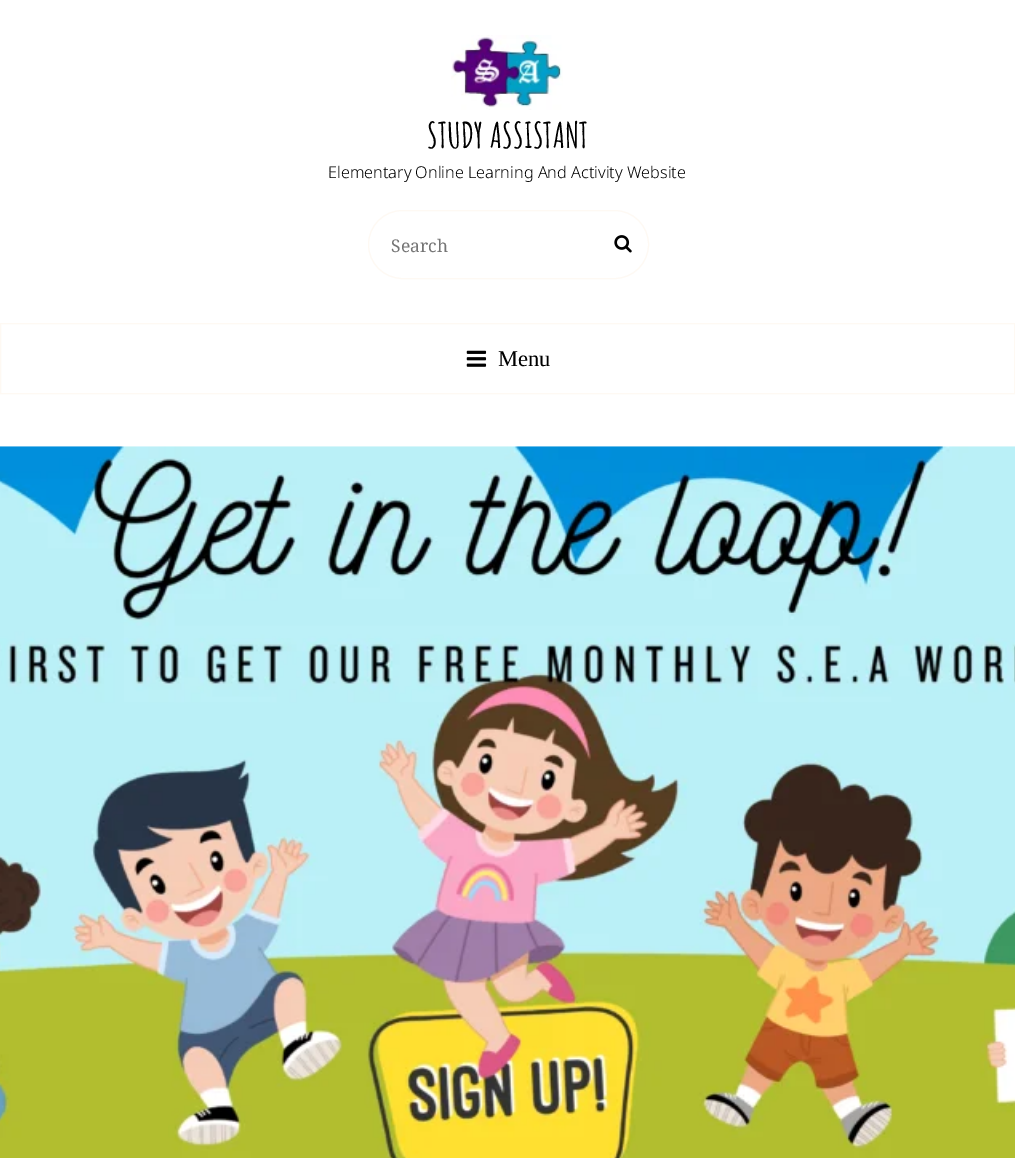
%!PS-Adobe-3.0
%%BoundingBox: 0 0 1015 1158
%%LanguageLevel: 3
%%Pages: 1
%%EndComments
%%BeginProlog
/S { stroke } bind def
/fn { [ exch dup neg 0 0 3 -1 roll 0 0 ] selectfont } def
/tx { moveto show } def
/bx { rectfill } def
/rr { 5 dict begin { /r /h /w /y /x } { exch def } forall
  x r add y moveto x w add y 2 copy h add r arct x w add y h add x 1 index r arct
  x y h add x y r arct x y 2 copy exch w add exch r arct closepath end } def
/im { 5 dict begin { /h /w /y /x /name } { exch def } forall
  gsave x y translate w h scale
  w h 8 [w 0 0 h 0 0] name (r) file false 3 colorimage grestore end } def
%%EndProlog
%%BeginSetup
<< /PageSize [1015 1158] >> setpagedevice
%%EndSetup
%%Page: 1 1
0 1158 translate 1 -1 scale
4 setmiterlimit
1 setgray
0 0 1015 1158 bx
(image0.raw) 451 35 112 75 im
/AmaticSC-Bold 35 fn
0 setgray
(STUDY ASSISTANT) 427 148 tx
/NotoSans-Light 16.25 fn
(Elementary Online Learning And Activity Website) 328 178 tx
0.996 0.976 0.953 setrgbcolor
368.5 210.5 280 68 34 rr S
/NotoSerif-Regular 17.5 fn
0.459 setgray
(Search) 391 252 tx
(image1.raw) 614 235 18 18 im
0.996 0.976 0.953 setrgbcolor
0.5 323.5 1014 70 rectstroke
(image2.raw) 466 350 21 17 im
/LiberationSerif-Regular 22.5 fn
0 setgray
(Menu) 498 366 tx
(image3.raw) 0 446 1015 712 im
showpage
%%EOF
